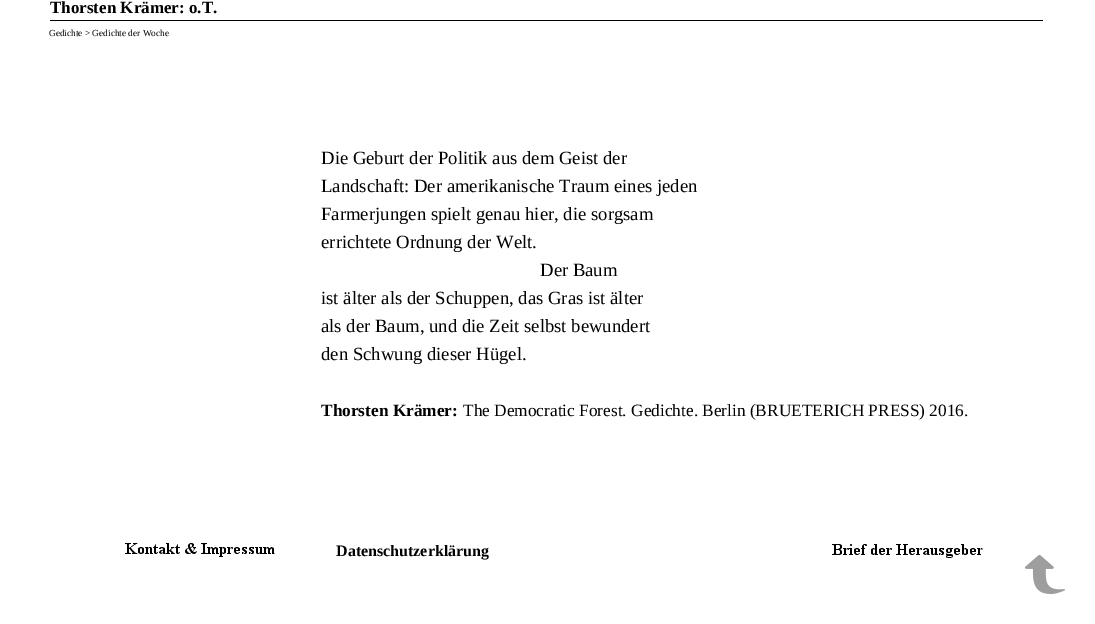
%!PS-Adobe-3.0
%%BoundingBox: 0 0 1095 624
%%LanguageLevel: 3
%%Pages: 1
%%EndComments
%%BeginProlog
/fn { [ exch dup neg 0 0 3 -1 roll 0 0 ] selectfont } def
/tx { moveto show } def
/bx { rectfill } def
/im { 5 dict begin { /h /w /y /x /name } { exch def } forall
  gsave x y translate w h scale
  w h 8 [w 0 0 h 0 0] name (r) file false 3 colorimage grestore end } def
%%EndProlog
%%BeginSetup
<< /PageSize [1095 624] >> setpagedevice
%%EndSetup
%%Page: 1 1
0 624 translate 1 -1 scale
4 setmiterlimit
1 setgray
0 0 1095 624 bx
0 setgray
50 20 993 1 bx
/LiberationSerif-Bold 17 fn
(Thorsten Krämer: o.T.) 50 13 tx
/LiberationSerif-Regular 9.3 fn
(Gedichte > Gedichte der Woche) 49 36 tx
/LiberationSerif-Regular 18.7 fn
(Die Geburt der Politik aus dem Geist der) 321 164 tx
(Landschaft: Der amerikanische Traum eines jeden) 321 192 tx
(Farmerjungen spielt genau hier, die sorgsam) 321 220 tx
(errichtete Ordnung der Welt.) 321 248 tx
(Der Baum) 540 276 tx
(ist älter als der Schuppen, das Gras ist älter) 321 304 tx
(als der Baum, und die Zeit selbst bewundert) 321 332 tx
(den Schwung dieser Hügel.) 321 360 tx
/LiberationSerif-Bold 17.3 fn
(Thorsten Krämer:) 321 416 tx
/LiberationSerif-Regular 17.3 fn
(The Democratic Forest. Gedichte. Berlin \(BRUETERICH PRESS\) 2016.) 463 416 tx
(image0.raw) 125 543 150 14 im
/LiberationSerif-Bold 16 fn
(Datenschutzerklärung) 336 556 tx
(image1.raw) 832 544 151 14 im
(image2.raw) 1025 555 40 39 im
showpage
%%EOF
